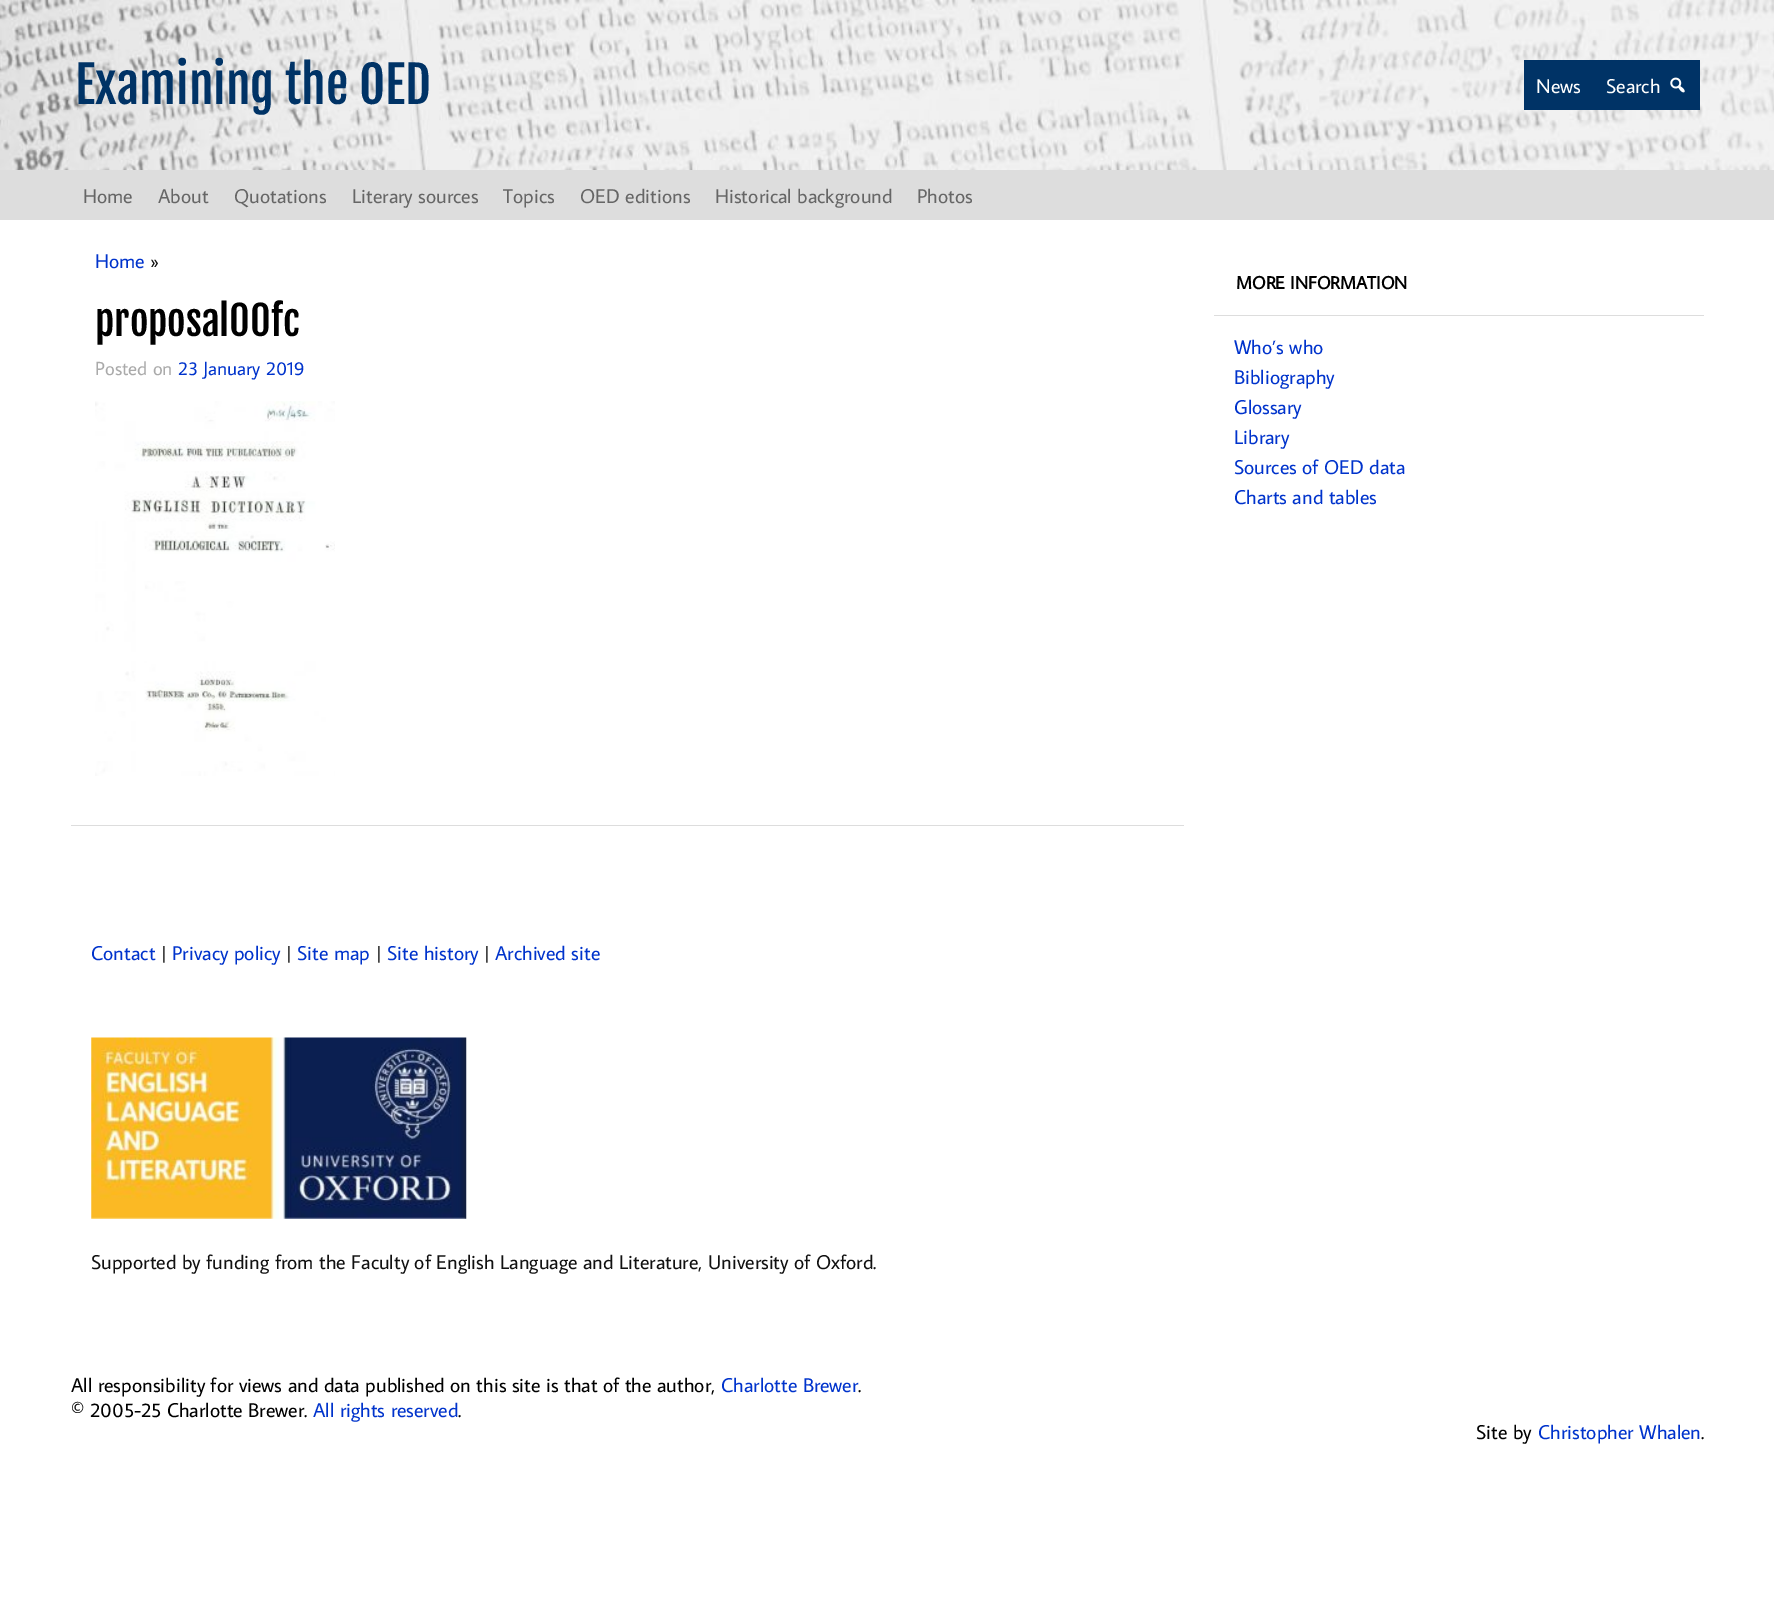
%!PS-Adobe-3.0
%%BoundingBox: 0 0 1774 1607
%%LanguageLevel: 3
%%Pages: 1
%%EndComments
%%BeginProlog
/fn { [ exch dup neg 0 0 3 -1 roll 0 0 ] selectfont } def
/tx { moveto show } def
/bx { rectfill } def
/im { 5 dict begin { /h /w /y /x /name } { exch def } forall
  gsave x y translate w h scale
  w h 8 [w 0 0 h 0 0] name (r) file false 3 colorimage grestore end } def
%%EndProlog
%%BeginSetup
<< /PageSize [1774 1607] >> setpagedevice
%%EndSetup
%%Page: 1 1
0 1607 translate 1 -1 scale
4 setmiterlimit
1 setgray
0 0 1774 1607 bx
(image0.raw) 0 0 1774 170 im
/FjallaOne-Regular 50 fn
0 0.2 0.4 setrgbcolor
(Examining the OED) 75 104 tx
1524 60 176 50 bx
/AverageSans-Regular 20 fn
1 setgray
(News) 1536 93 tx
(Search) 1606 93 tx
(image1.raw) 1670 77 15 16 im
0.867 setgray
0 170 1774 50 bx
0.4 setgray
(Home) 83 203 tx
(About) 158 203 tx
(Quotations) 234 203 tx
(Literary sources) 352 203 tx
(Topics) 503 203 tx
(OED editions) 580 203 tx
(Historical background) 715 203 tx
(Photos) 917 203 tx
0 0.2 0.8 setrgbcolor
(Home) 95 268 tx
0.067 setgray
(») 150 268 tx
/FjallaOne-Regular 40 fn
0 setgray
(proposal00fc) 95 336 tx
/AverageSans-Regular 19 fn
0.667 setgray
(Posted on) 95 375 tx
0 0.2 0.8 setrgbcolor
(23 January 2019) 178 375 tx
(image2.raw) 95 401 240 375 im
0.867 setgray
71 825 1113 1 bx
1214 315 490 1 bx
/AverageSans-Bold 18 fn
0 setgray
(MORE INFORMATION) 1236 289 tx
/AverageSans-Regular 20 fn
0 0.2 0.8 setrgbcolor
(Who’s who) 1234 354 tx
(Bibliography) 1234 384 tx
(Glossary) 1234 414 tx
(Library) 1234 444 tx
(Sources of OED data) 1234 474 tx
(Charts and tables) 1234 504 tx
(Contact) 91 960 tx
0 setgray
(|) 161 960 tx
0 0.2 0.8 setrgbcolor
(Privacy policy) 172 960 tx
0 setgray
(|) 286 960 tx
0 0.2 0.8 setrgbcolor
(Site map) 297 960 tx
0 setgray
(|) 376 960 tx
0 0.2 0.8 setrgbcolor
(Site history) 387 960 tx
0 setgray
(|) 484 960 tx
0 0.2 0.8 setrgbcolor
(Archived site) 495 960 tx
(image3.raw) 91 1037 376 182 im
0.067 setgray
(Supported by funding from the Faculty of English Language and Literature, University of Oxford.) 91 1269 tx
0 setgray
(All responsibility for views and data published on this site is that of the author,) 71 1392 tx
0 0.2 0.8 setrgbcolor
(Charlotte Brewer) 721 1392 tx
0 setgray
(.) 858 1392 tx
(© 2005-25 Charlotte Brewer.) 71 1417 tx
0 0.2 0.8 setrgbcolor
(All rights reserved) 313 1417 tx
0 setgray
(.) 458 1417 tx
(Site by) 1476 1439 tx
0 0.2 0.8 setrgbcolor
(Christopher Whalen) 1538 1439 tx
0 setgray
(.) 1701 1439 tx
showpage
%%EOF
